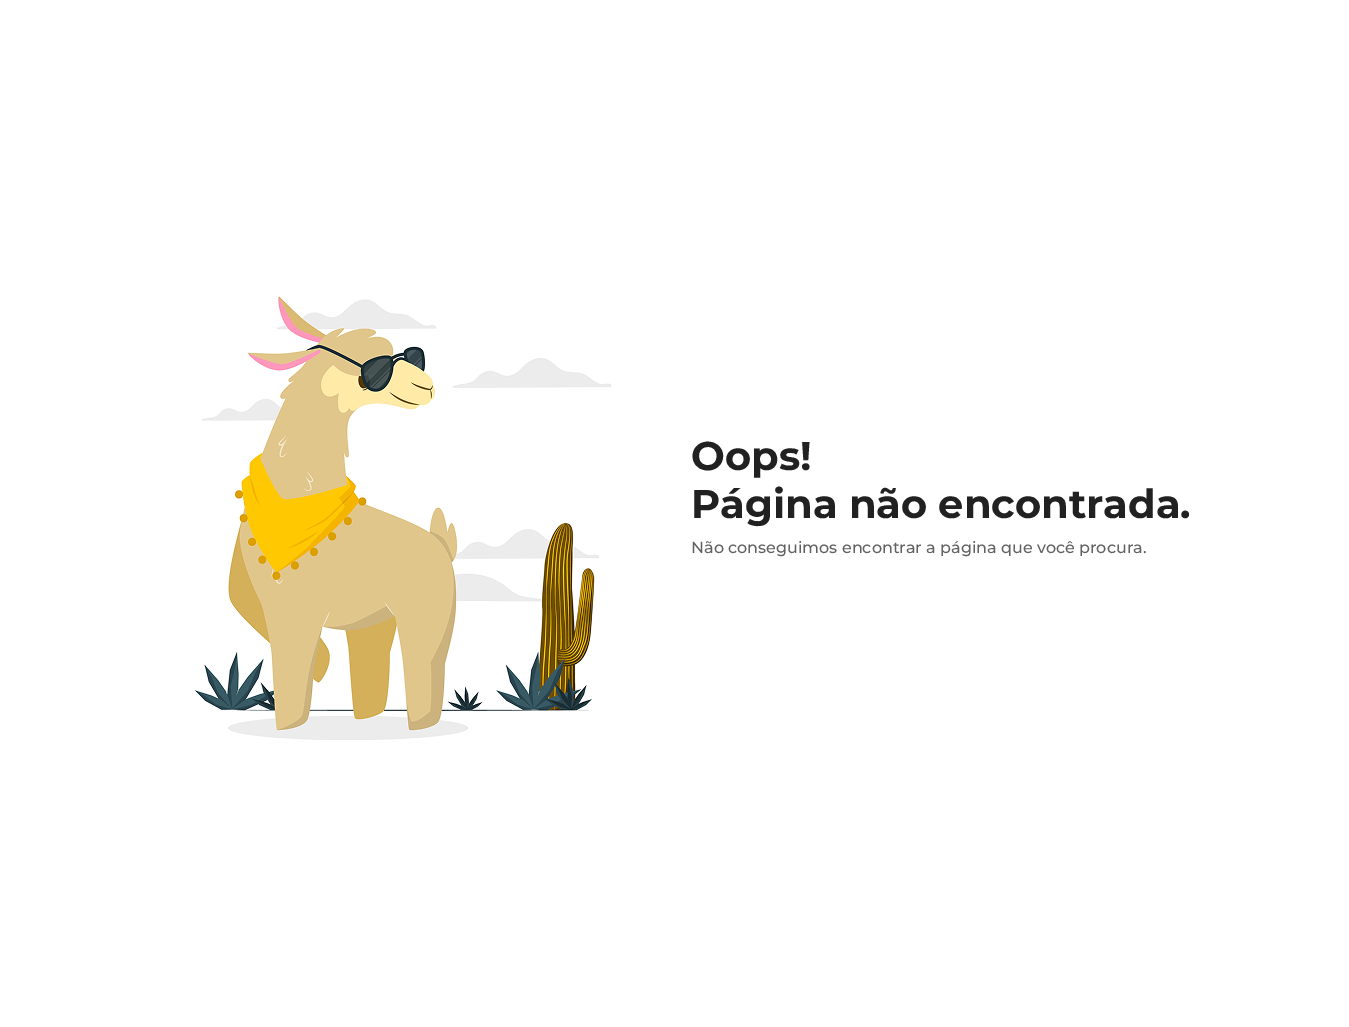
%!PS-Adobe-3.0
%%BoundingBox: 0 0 1349 1027
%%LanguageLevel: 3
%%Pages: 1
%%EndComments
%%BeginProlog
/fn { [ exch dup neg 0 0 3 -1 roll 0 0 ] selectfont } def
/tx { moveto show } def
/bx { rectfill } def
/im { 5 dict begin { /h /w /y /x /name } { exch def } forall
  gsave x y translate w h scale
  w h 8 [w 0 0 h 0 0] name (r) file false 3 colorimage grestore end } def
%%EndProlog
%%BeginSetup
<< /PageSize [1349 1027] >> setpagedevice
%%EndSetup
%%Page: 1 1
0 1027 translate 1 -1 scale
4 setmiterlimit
1 setgray
0 0 1349 1027 bx
(image0.raw) 195 296 417 444 im
/Montserrat-Bold 40 fn
0.129 setgray
(Oops!) 691 470 tx
(Página não encontrada.) 691 518 tx
/Montserrat-Medium 16 fn
0.38 setgray
(Não conseguimos encontrar a página que você procura.) 691 553 tx
showpage
%%EOF
